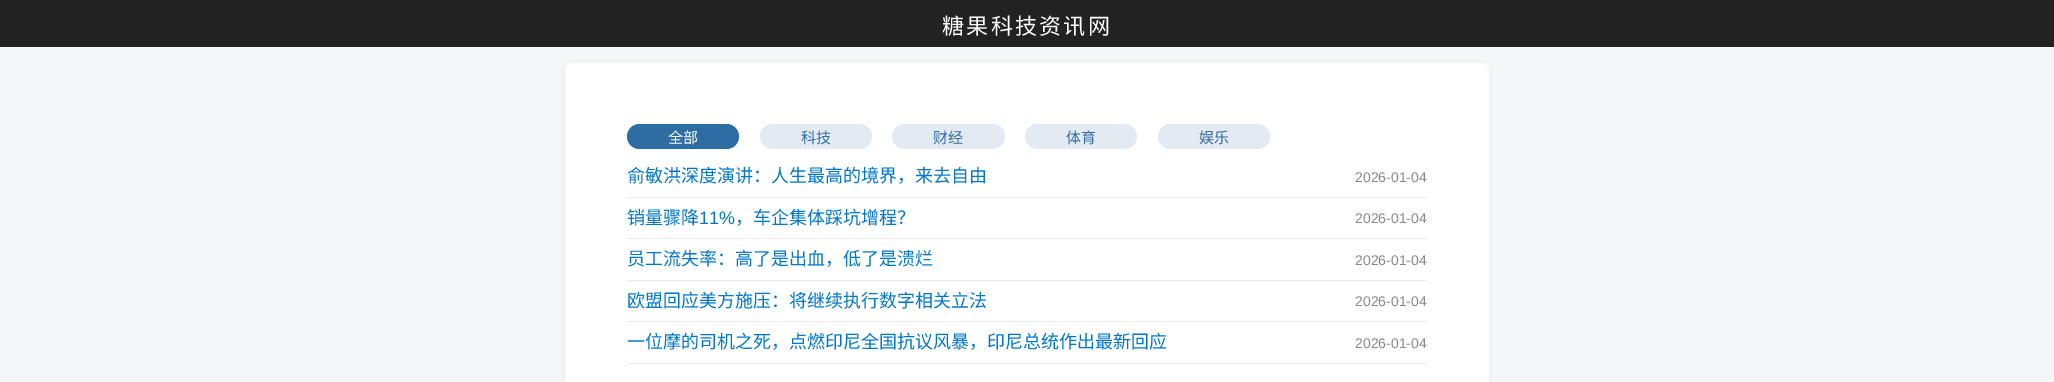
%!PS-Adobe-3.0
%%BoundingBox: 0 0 2054 382
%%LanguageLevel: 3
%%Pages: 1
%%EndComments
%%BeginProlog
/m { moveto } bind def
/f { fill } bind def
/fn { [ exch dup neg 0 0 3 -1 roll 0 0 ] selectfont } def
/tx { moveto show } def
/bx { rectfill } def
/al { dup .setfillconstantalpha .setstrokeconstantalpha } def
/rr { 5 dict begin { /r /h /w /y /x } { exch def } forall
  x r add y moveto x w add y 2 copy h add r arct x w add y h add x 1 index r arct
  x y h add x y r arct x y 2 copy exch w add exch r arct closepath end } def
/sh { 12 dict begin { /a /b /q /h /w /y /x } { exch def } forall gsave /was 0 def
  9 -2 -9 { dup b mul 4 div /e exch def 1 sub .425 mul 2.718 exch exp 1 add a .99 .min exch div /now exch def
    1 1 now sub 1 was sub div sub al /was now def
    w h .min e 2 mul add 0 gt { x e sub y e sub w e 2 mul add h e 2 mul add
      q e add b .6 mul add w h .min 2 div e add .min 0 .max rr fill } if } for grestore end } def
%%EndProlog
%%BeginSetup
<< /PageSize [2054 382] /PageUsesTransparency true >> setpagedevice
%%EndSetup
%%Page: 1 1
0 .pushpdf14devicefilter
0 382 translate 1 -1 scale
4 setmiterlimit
0.957 0.965 0.973 setrgbcolor
0 0 2054 382 bx
0.133 setgray
0 0 2054 47 bx
/NotoSansCJKSC-Regular 22 fn
1 setgray
942 34 m 2.25 0 (糖果科技资讯网) ashow
0 setgray
565 65 924 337 8 4 0.06 sh
1 setgray
565 63 924 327 8 rr f
0.176 0.427 0.639 setrgbcolor
627 124 112 25 12.5 rr f
/NotoSansCJKSC-Regular 15 fn
1 setgray
(全部) 668 143 tx
0.89 0.918 0.945 setrgbcolor
760 124 112 25 12.5 rr f
0.176 0.427 0.639 setrgbcolor
(科技) 801 143 tx
0.89 0.918 0.945 setrgbcolor
892 124 113 25 12.5 rr f
0.176 0.427 0.639 setrgbcolor
(财经) 933 143 tx
0.89 0.918 0.945 setrgbcolor
1025 124 112 25 12.5 rr f
0.176 0.427 0.639 setrgbcolor
(体育) 1066 143 tx
0.89 0.918 0.945 setrgbcolor
1158 124 112 25 12.5 rr f
0.176 0.427 0.639 setrgbcolor
(娱乐) 1199 143 tx
0.918 setgray
627 197 800 1 bx
/NotoSansCJKSC-Regular 18 fn
0 0.467 0.8 setrgbcolor
(俞敏洪深度演讲：人生最高的境界，来去自由) 627 182 tx
/LiberationSans-Regular 14 fn
0.533 setgray
(2026-01-04) 1355 182 tx
0.918 setgray
627 238 800 1 bx
/NotoSansCJKSC-Regular 18 fn
0 0.467 0.8 setrgbcolor
(销量骤降) 627 224 tx
/LiberationSans-Regular 18 fn
(11%) 699 224 tx
/NotoSansCJKSC-Regular 18 fn
(，车企集体踩坑增程？) 735 224 tx
/LiberationSans-Regular 14 fn
0.533 setgray
(2026-01-04) 1355 223 tx
0.918 setgray
627 280 800 1 bx
/NotoSansCJKSC-Regular 18 fn
0 0.467 0.8 setrgbcolor
(员工流失率：高了是出血，低了是溃烂) 627 265 tx
/LiberationSans-Regular 14 fn
0.533 setgray
(2026-01-04) 1355 265 tx
0.918 setgray
627 321 800 1 bx
/NotoSansCJKSC-Regular 18 fn
0 0.467 0.8 setrgbcolor
(欧盟回应美方施压：将继续执行数字相关立法) 627 307 tx
/LiberationSans-Regular 14 fn
0.533 setgray
(2026-01-04) 1355 306 tx
0.918 setgray
627 363 800 1 bx
/NotoSansCJKSC-Regular 18 fn
0 0.467 0.8 setrgbcolor
(一位摩的司机之死，点燃印尼全国抗议风暴，印尼总统作出最新回应) 627 348 tx
/LiberationSans-Regular 14 fn
0.533 setgray
(2026-01-04) 1355 348 tx
.poppdf14devicefilter showpage
%%EOF
